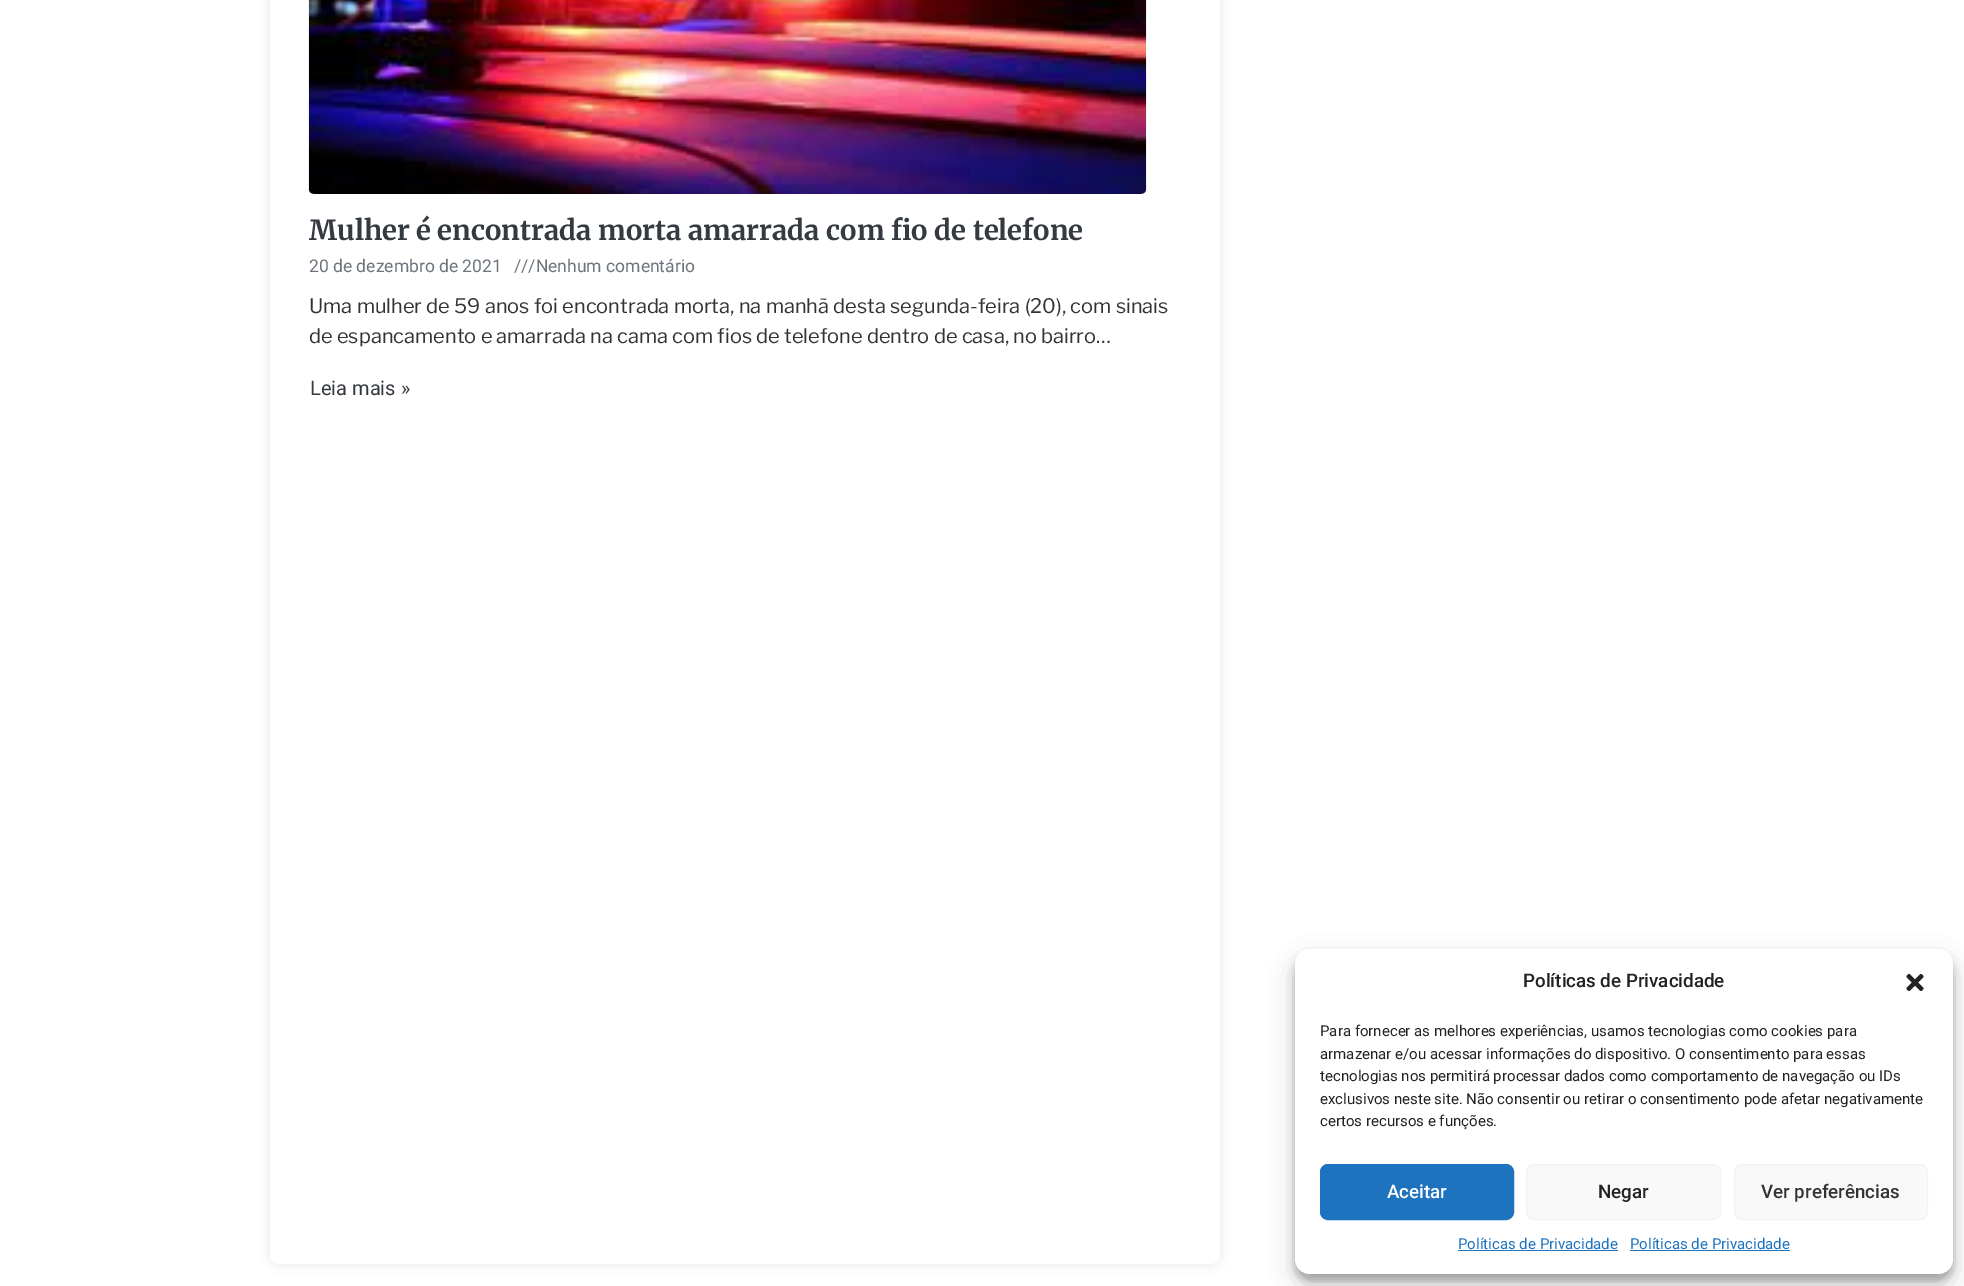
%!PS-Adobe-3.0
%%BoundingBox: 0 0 1964 1286
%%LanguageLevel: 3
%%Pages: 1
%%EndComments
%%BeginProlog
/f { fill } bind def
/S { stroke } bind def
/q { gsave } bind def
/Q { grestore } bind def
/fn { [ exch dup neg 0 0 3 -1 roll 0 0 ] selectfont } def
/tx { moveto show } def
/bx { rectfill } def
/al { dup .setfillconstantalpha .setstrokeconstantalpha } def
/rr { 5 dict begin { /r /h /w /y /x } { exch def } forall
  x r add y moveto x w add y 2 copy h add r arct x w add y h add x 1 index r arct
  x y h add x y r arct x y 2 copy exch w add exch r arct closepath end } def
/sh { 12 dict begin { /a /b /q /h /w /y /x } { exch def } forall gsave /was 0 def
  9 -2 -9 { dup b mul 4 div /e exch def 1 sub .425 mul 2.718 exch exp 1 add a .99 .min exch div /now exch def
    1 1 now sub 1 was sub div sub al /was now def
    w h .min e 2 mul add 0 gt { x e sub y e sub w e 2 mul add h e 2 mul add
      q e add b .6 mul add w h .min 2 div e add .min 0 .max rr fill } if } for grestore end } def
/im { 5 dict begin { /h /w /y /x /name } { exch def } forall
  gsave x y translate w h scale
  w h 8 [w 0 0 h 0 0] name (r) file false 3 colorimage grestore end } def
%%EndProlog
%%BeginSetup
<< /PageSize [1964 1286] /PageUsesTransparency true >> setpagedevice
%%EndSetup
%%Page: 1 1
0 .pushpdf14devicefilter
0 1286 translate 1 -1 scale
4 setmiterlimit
1 setgray
0 0 1964 1286 bx
0 setgray
270 -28 950 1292 10 6 0.1 sh
1 setgray
270 -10 950 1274 10 rr f
(image0.raw) 308 0 839 194 im
/Merriweather-Bold 27.5 fn
0.204 0.227 0.251 setrgbcolor
(Mulher é encontrada morta amarrada com fio de telefone) 309 240 tx
/Roboto-Regular 17.5 fn
0.424 0.459 0.49 setrgbcolor
(20 de dezembro de 2021) 309 272 tx
(///Nenhum comentário) 514 272 tx
/LibreFranklin-Regular 20 fn
0.2 setgray
(Uma mulher de 59 anos foi encontrada morta, na manhã desta segunda-feira \(20\), com sinais) 309 313 tx
(de espancamento e amarrada na cama com fios de telefone dentro de casa, no bairro…) 309 343 tx
/Roboto-Regular 20 fn
0.204 0.227 0.251 setrgbcolor
(Leia mais ») 310 395 tx
0 setgray
1295 956 658 325 15 4 0.23 sh
1295 961 658 325 15 12.5 0.19 sh
1 setgray
1295 949 658 325 15 rr f
/Roboto-Medium 18.75 fn
0.133 setgray
(Políticas de Privacidade) 1523 987 tx
(image1.raw) 1906 973 18 18 im
/Roboto-Regular 15 fn
(Para fornecer as melhores experiências, usamos tecnologias como cookies para) 1320 1036 tx
(armazenar e/ou acessar informações do dispositivo. O consentimento para essas) 1320 1059 tx
(tecnologias nos permitirá processar dados como comportamento de navegação ou IDs) 1320 1081 tx
(exclusivos neste site. Não consentir ou retirar o consentimento pode afetar negativamente) 1320 1104 tx
(certos recursos e funções.) 1320 1126 tx
0.118 0.451 0.745 setrgbcolor
1320.5 1164.5 193 55 7.5 rr q f Q
S
/Roboto-Medium 18.75 fn
1 setgray
(Aceitar) 1387 1198 tx
0.976 setgray
1526.5 1164.5 194 55 7.5 rr q f Q
0.949 setgray
S
0.133 setgray
(Negar) 1598 1198 tx
0.976 setgray
1734.5 1164.5 193 55 7.5 rr q f Q
0.949 setgray
S
0.2 setgray
(Ver preferências) 1761 1198 tx
/Roboto-Regular 15 fn
0.118 0.451 0.745 setrgbcolor
(Políticas de Privacidade) 1458 1249 tx
1458 1250 160 1 bx
(Políticas de Privacidade) 1630 1249 tx
1630 1250 160 1 bx
.poppdf14devicefilter showpage
%%EOF
